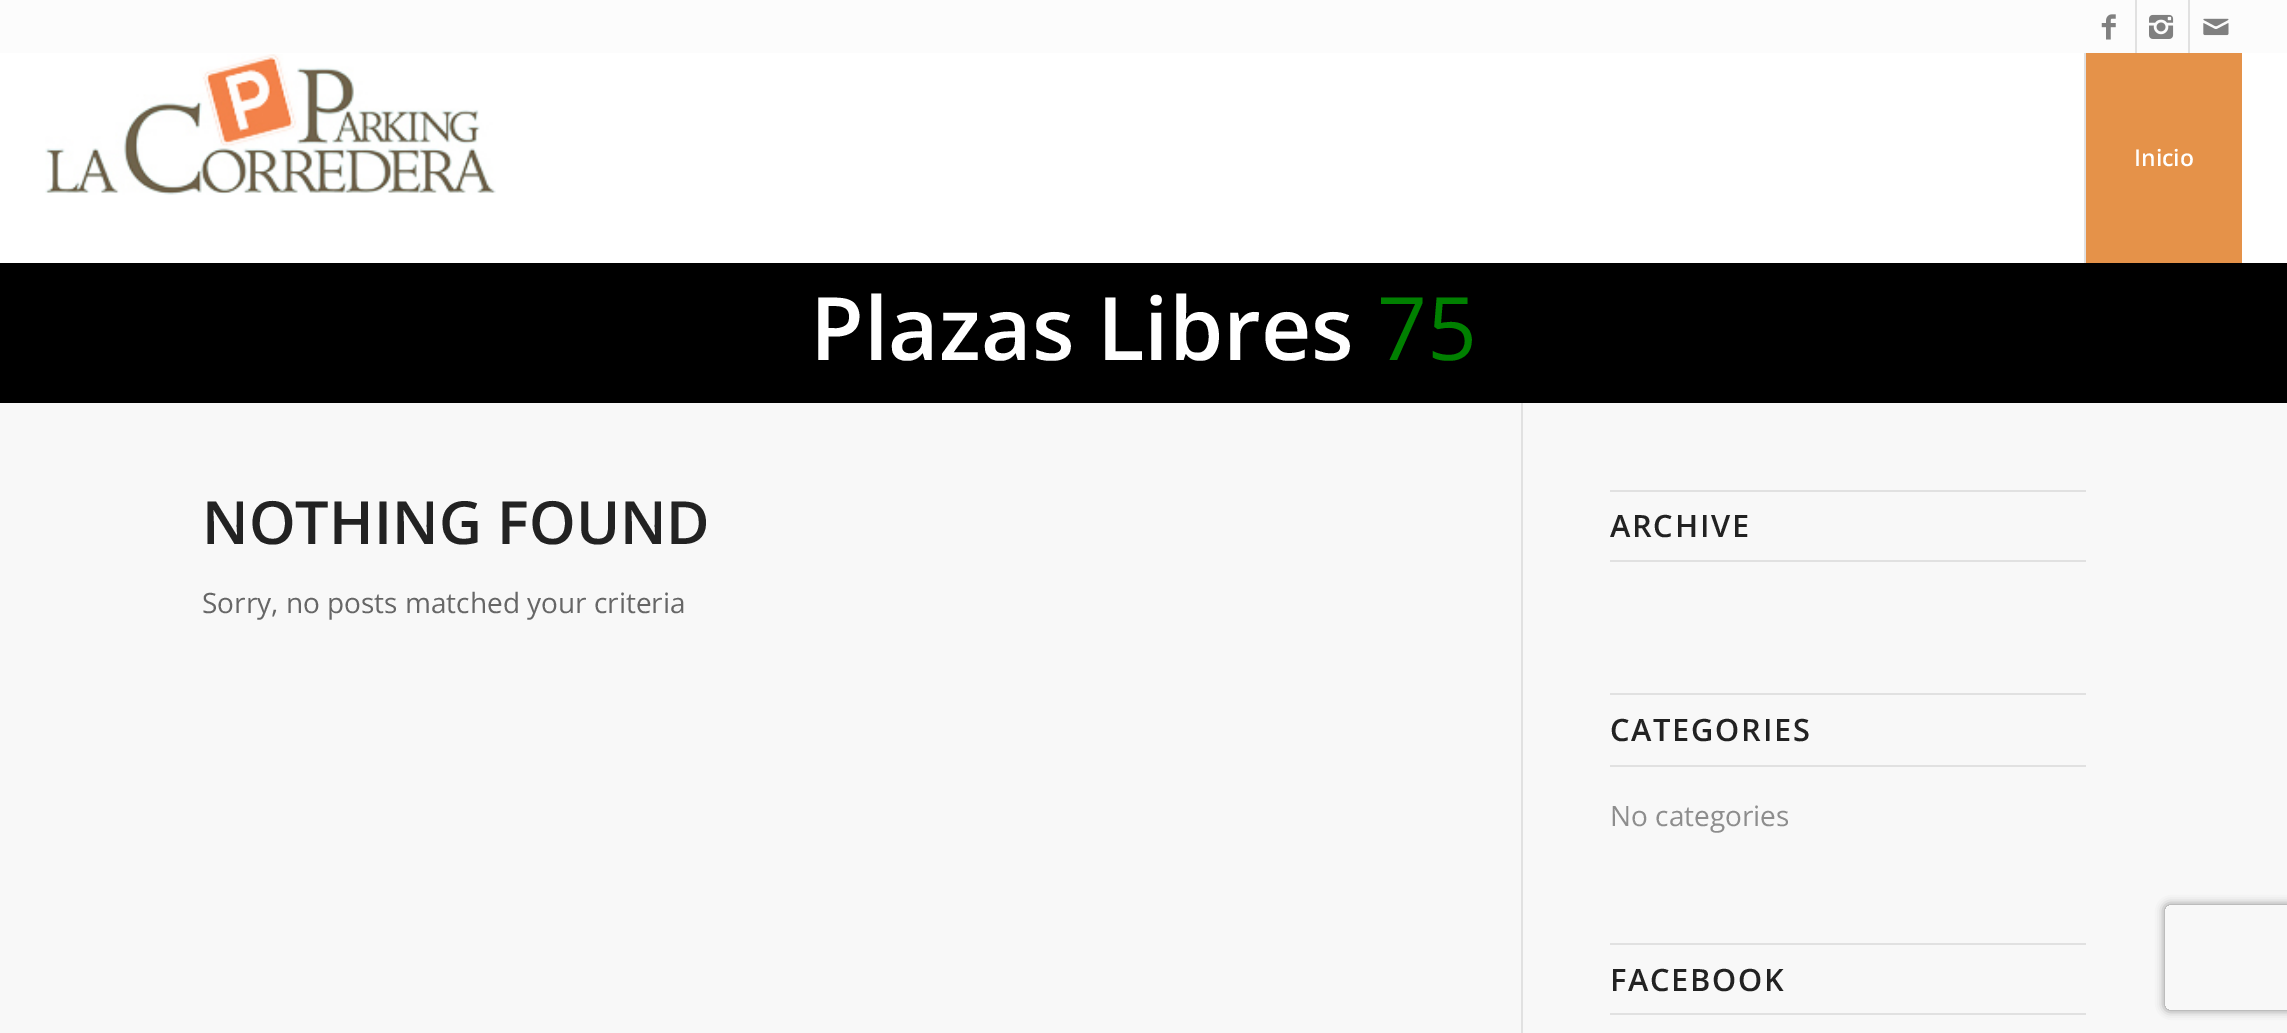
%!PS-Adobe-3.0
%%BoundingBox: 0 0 2287 1033
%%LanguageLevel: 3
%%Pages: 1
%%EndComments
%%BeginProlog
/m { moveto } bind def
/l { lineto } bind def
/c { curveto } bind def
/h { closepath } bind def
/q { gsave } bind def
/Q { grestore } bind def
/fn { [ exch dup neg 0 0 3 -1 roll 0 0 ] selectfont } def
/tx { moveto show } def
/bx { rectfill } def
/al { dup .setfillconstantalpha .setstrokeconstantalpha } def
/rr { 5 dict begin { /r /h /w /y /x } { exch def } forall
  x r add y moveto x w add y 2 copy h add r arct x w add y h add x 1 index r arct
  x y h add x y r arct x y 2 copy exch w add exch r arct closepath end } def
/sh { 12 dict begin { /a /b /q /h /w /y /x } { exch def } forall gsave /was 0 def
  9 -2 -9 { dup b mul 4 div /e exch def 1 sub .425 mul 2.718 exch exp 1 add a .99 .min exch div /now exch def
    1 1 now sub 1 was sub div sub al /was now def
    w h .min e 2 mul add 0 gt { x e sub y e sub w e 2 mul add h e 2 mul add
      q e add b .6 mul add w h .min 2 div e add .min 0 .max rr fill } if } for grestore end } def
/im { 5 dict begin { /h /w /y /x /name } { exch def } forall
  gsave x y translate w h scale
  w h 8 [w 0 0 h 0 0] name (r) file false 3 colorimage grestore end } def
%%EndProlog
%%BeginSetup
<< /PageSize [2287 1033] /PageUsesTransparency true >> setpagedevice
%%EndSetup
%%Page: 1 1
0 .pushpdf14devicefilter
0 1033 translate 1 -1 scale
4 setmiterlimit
0 setgray
0 0 2287 1033 bx
0.988 setgray
0 0 2287 53 bx
0.882 setgray
2135 0 2 53 bx
(image0.raw) 2101 14 15 26 im
2188 0 2 53 bx
(image1.raw) 2149 14 25 25 im
(image2.raw) 2203 18 26 18 im
1 setgray
0 53 2287 210 bx
(image3.raw) 45 54 451 141 im
0.898 0.573 0.286 setrgbcolor
2086 53 156 210 bx
0.882 setgray
2084 53 2 210 bx
/OpenSans-SemiBold 23 fn
1 setgray
(Inicio) 2134 166 tx
/OpenSans-SemiBold 87.5 fn
(Plazas Libres) 810 360 tx
/OpenSans-Regular 87.5 fn
0 0.502 0 setrgbcolor
(75) 1377 360 tx
0.973 setgray
0 403 2287 630 bx
/OpenSans-SemiBold 59.5 fn
0.133 setgray
(NOTHING FOUND) 202 544 tx
/OpenSans-Regular 28 fn
0.4 setgray
(Sorry, no posts matched your criteria) 202 613 tx
0.882 setgray
1521 403 2 630 bx
1610 490 476 2 bx
1610 560 476 2 bx
/OpenSans-SemiBold 30.75 fn
0.133 setgray
1610 537 m 1.75 0 (ARCHIVE) ashow
0.882 setgray
1610 693 476 2 bx
1610 765 476 2 bx
0.133 setgray
1610 741 m 1.75 0 (CATEGORIES) ashow
/OpenSans-Regular 28 fn
0.553 setgray
(No categories) 1610 826 tx
0.882 setgray
1610 943 476 2 bx
1610 1013 476 2 bx
/OpenSans-SemiBold 30.75 fn
0.133 setgray
1610 991 m 1.75 0 (FACEBOOK) ashow
q
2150 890 m 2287 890 l 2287 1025 l 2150 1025 l h 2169 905 m 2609 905 l 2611 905 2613 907 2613 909 c 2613 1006 l 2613 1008 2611 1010 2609 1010 c 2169 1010 l 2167 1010 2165 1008 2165 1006 c 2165 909 l 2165 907 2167 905 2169 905 c h eoclip newpath
0.502 setgray
2165 905 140 105 4 4.5 1 sh
Q
.poppdf14devicefilter showpage
%%EOF
